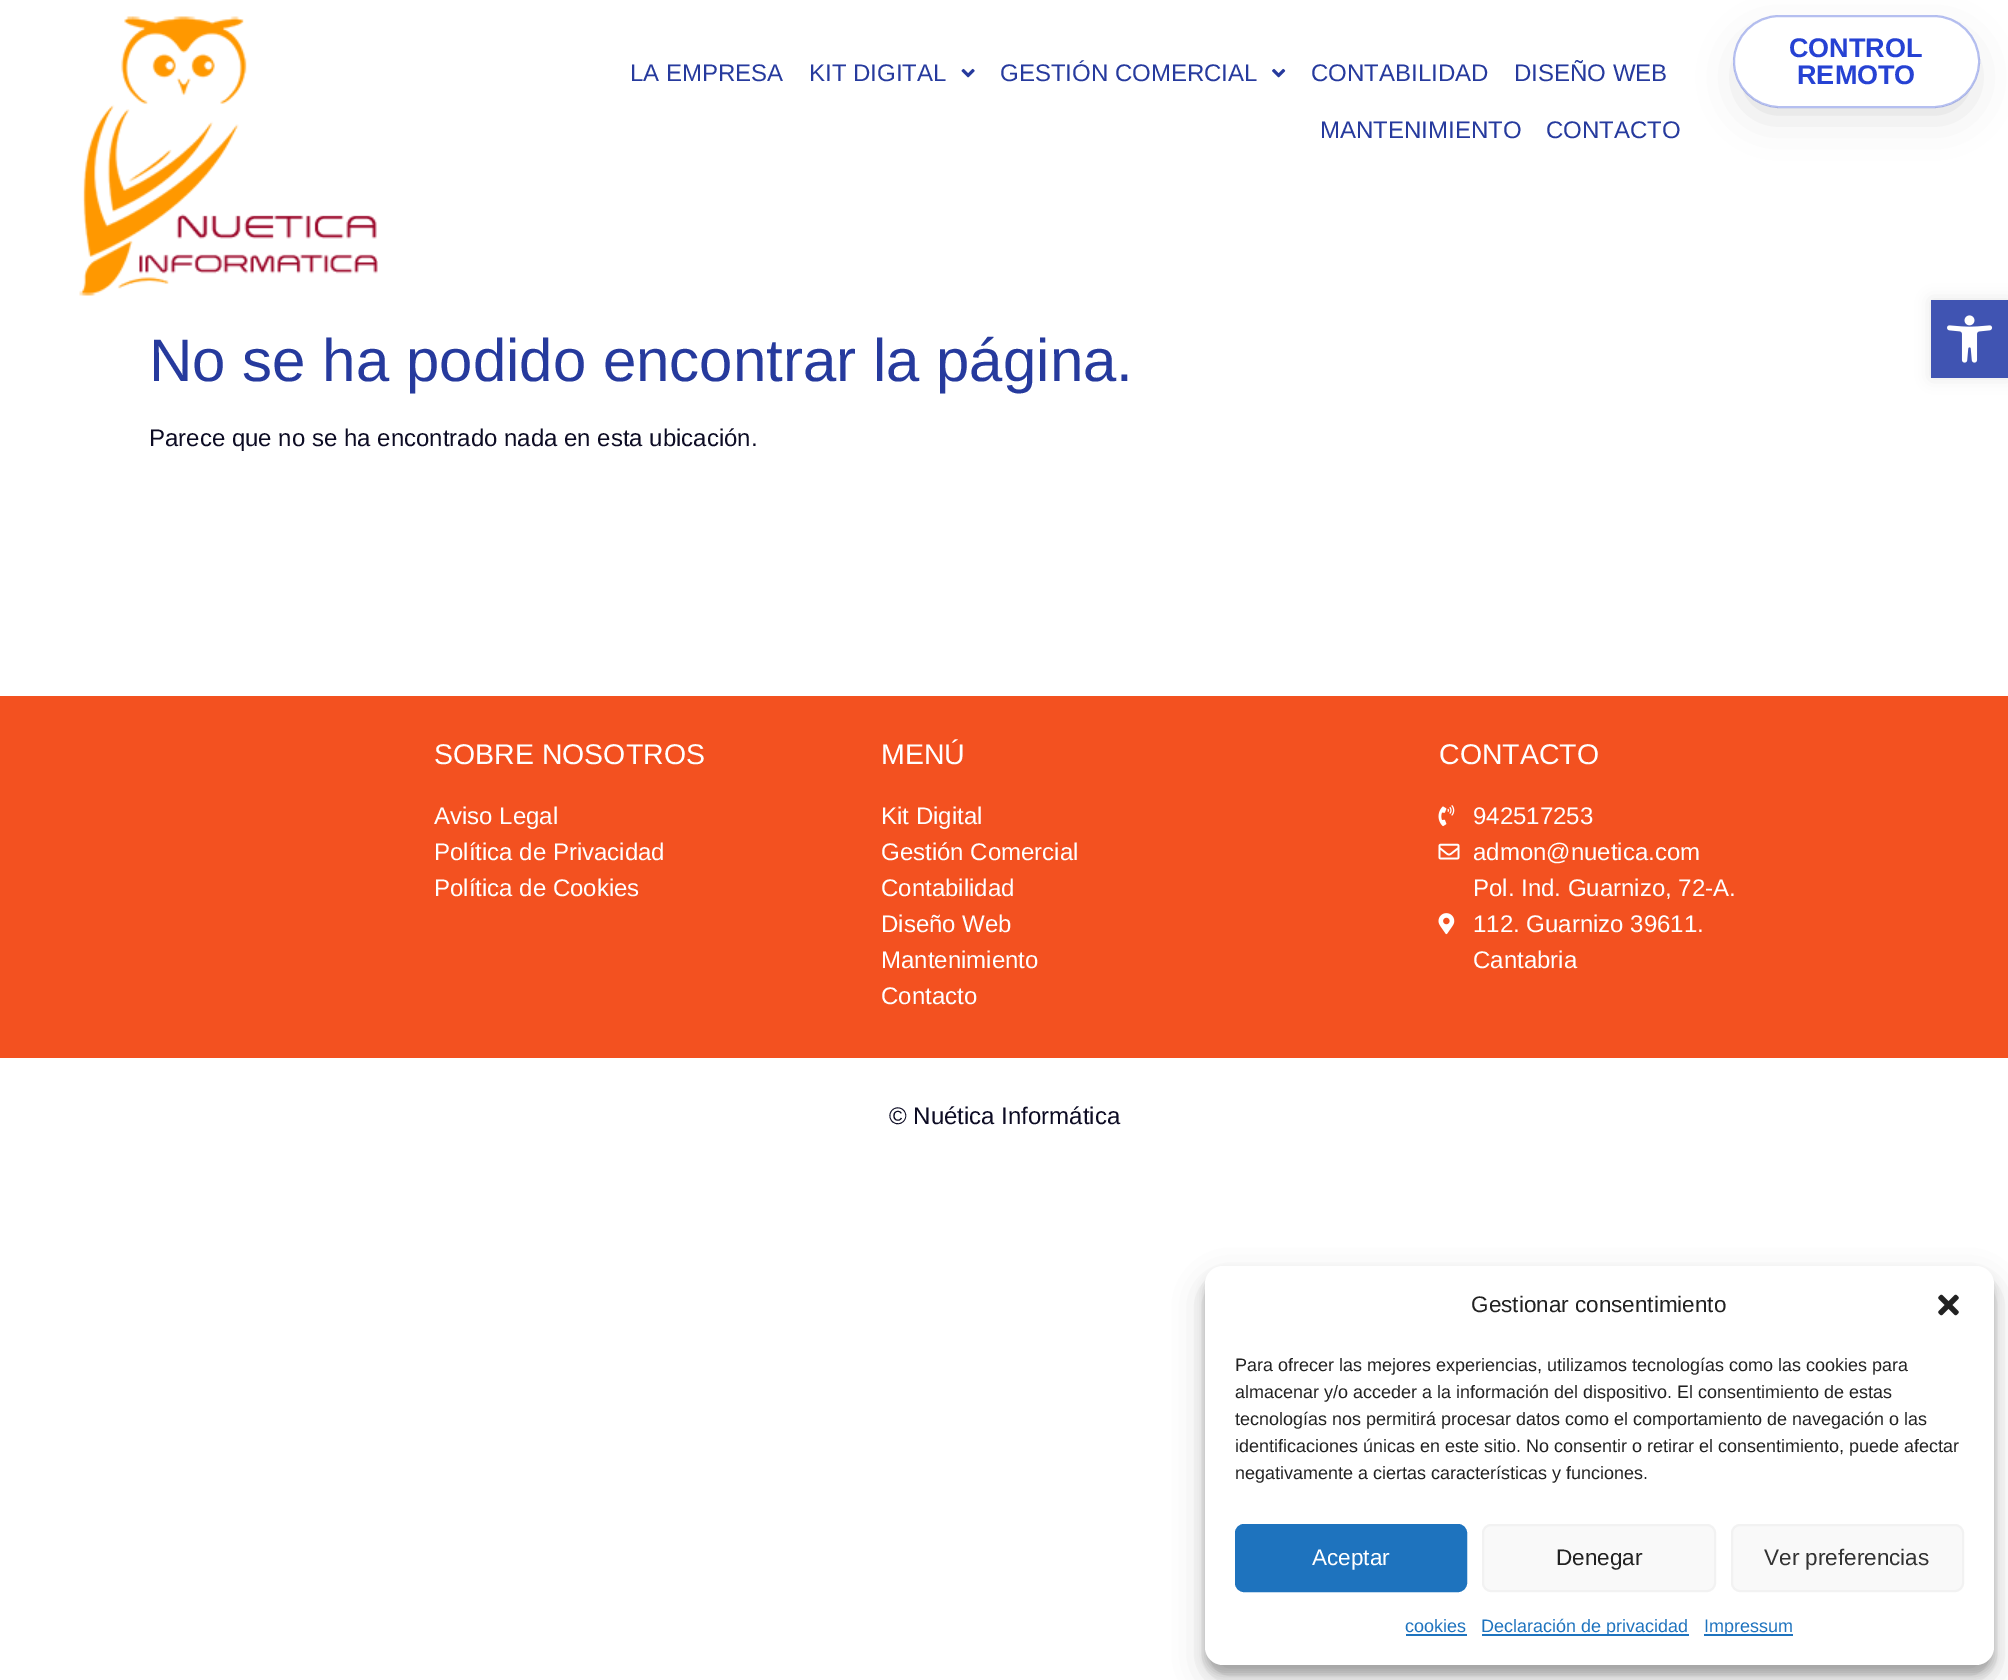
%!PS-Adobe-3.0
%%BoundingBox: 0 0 2008 1680
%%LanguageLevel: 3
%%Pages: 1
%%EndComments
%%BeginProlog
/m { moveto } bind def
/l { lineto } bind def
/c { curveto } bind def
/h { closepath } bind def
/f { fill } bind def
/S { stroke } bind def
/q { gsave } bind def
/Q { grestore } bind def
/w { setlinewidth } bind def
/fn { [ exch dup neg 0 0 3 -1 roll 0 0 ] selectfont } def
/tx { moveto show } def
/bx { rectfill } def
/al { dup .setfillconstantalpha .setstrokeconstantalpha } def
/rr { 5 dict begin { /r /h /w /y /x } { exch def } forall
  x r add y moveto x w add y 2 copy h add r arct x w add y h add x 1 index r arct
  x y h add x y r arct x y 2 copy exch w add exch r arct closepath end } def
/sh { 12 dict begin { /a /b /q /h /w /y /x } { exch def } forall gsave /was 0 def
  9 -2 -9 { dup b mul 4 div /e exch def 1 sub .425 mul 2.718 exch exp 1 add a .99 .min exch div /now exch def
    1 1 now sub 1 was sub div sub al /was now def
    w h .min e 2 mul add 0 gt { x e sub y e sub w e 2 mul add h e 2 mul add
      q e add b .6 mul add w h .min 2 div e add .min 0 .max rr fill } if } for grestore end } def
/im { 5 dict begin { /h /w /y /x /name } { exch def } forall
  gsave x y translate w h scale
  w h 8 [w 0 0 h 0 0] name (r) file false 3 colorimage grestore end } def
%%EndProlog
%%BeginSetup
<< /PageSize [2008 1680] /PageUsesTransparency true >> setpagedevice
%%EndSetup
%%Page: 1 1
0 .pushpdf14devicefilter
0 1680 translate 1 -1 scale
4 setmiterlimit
1 setgray
0 0 2008 1680 bx
(image0.raw) 79 16 299 280 im
/LiberationSans-Regular 24 fn
0.149 0.227 0.616 setrgbcolor
(LA EMPRESA) 630 81 tx
(KIT DIGITAL) 809 81 tx
(image1.raw) 961 68 14 10 im
(GESTIÓN COMERCIAL) 1000 81 tx
(image2.raw) 1272 68 14 10 im
(CONTABILIDAD) 1311 81 tx
(DISEÑO WEB) 1514 81 tx
(MANTENIMIENTO) 1320 138 tx
(CONTACTO) 1546 138 tx
q
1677 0 m 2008 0 l 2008 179 l 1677 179 l h 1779.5 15 m 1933.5 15 l 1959 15 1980 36 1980 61.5 c 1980 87 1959 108 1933.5 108 c 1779.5 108 l 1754 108 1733 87 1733 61.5 c 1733 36 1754 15 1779.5 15 c h eoclip newpath
0 setgray
1746 44 221 66 33 22.5 0.16 sh
Q
0.34 al
0.149 0.259 0.827 setrgbcolor
2 w
1734 16 245 91 45.5 rr S
/LiberationSans-Bold 27 fn
1 al
(CONTROL) 1789 57 tx
(REMOTO) 1797 84 tx
/LiberationSans-Regular 60 fn
0.149 0.227 0.616 setrgbcolor
(No se ha podido encontrar la página.) 149 381 tx
/LiberationSans-Regular 24 fn
0.051 0.047 0.141 setrgbcolor
(Parece que no se ha encontrado nada en esta ubicación.) 149 446 tx
0.953 0.318 0.125 setrgbcolor
0 696 2008 362 bx
/LiberationSans-Regular 28.5 fn
1 setgray
(SOBRE NOSOTROS) 434 764 tx
/LiberationSans-Regular 24 fn
(Aviso Legal) 434 824 tx
(Política de Privacidad) 434 860 tx
(Política de Cookies) 434 896 tx
/LiberationSans-Regular 28.5 fn
(MENÚ) 881 764 tx
/LiberationSans-Regular 24 fn
(Kit Digital) 881 824 tx
(Gestión Comercial) 881 860 tx
(Contabilidad) 881 896 tx
(Diseño Web) 881 932 tx
(Mantenimiento) 881 968 tx
(Contacto) 881 1004 tx
/LiberationSans-Regular 28.5 fn
(CONTACTO) 1439 764 tx
(image3.raw) 1438 805 17 22 im
/LiberationSans-Regular 24 fn
(942517253) 1473 824 tx
(image4.raw) 1438 843 22 17 im
(admon@nuetica.com) 1473 860 tx
(image5.raw) 1438 913 17 22 im
(Pol. Ind. Guarnizo, 72-A.) 1473 896 tx
(112. Guarnizo 39611.) 1473 932 tx
(Cantabria) 1473 968 tx
0.051 0.047 0.141 setrgbcolor
(© Nuética Informática) 889 1124 tx
0 setgray
1931 300 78 78 0 7.5 0.1 sh
0.251 0.329 0.698 setrgbcolor
1931 300 77 78 bx
(image6.raw) 1947 315 46 48 im
0 setgray
1205 1275 789 399 18 4.5 0.23 sh
1205 1281 789 399 18 15 0.19 sh
1 setgray
1205 1266 789 399 18 rr f
/LiberationSans-Regular 22.5 fn
0.133 setgray
(Gestionar consentimiento) 1471 1312 tx
(image7.raw) 1938 1294 21 22 im
/LiberationSans-Regular 18 fn
(Para ofrecer las mejores experiencias, utilizamos tecnologías como las cookies para) 1235 1371 tx
(almacenar y/o acceder a la información del dispositivo. El consentimiento de estas) 1235 1398 tx
(tecnologías nos permitirá procesar datos como el comportamiento de navegación o las) 1235 1425 tx
(identificaciones únicas en este sitio. No consentir o retirar el consentimiento, puede afectar) 1235 1452 tx
(negativamente a ciertas características y funciones.) 1235 1479 tx
0.118 0.451 0.745 setrgbcolor
1236 1525 230 66 8 rr q f Q
S
/LiberationSans-Regular 22.5 fn
1 setgray
(Aceptar) 1312 1565 tx
0.976 setgray
1483 1525 232 66 8 rr q f Q
0.949 setgray
S
0.133 setgray
(Denegar) 1556 1565 tx
0.976 setgray
1732 1525 231 66 8 rr q f Q
0.949 setgray
S
0.2 setgray
(Ver preferencias) 1764 1565 tx
/LiberationSans-Regular 18 fn
0.118 0.451 0.745 setrgbcolor
(cookies) 1405 1632 tx
1406 1634 61 2 bx
1482 1634 207 2 bx
(Declaración de privacidad) 1481 1632 tx
1704 1634 89 2 bx
(Impressum) 1704 1632 tx
.poppdf14devicefilter showpage
%%EOF
